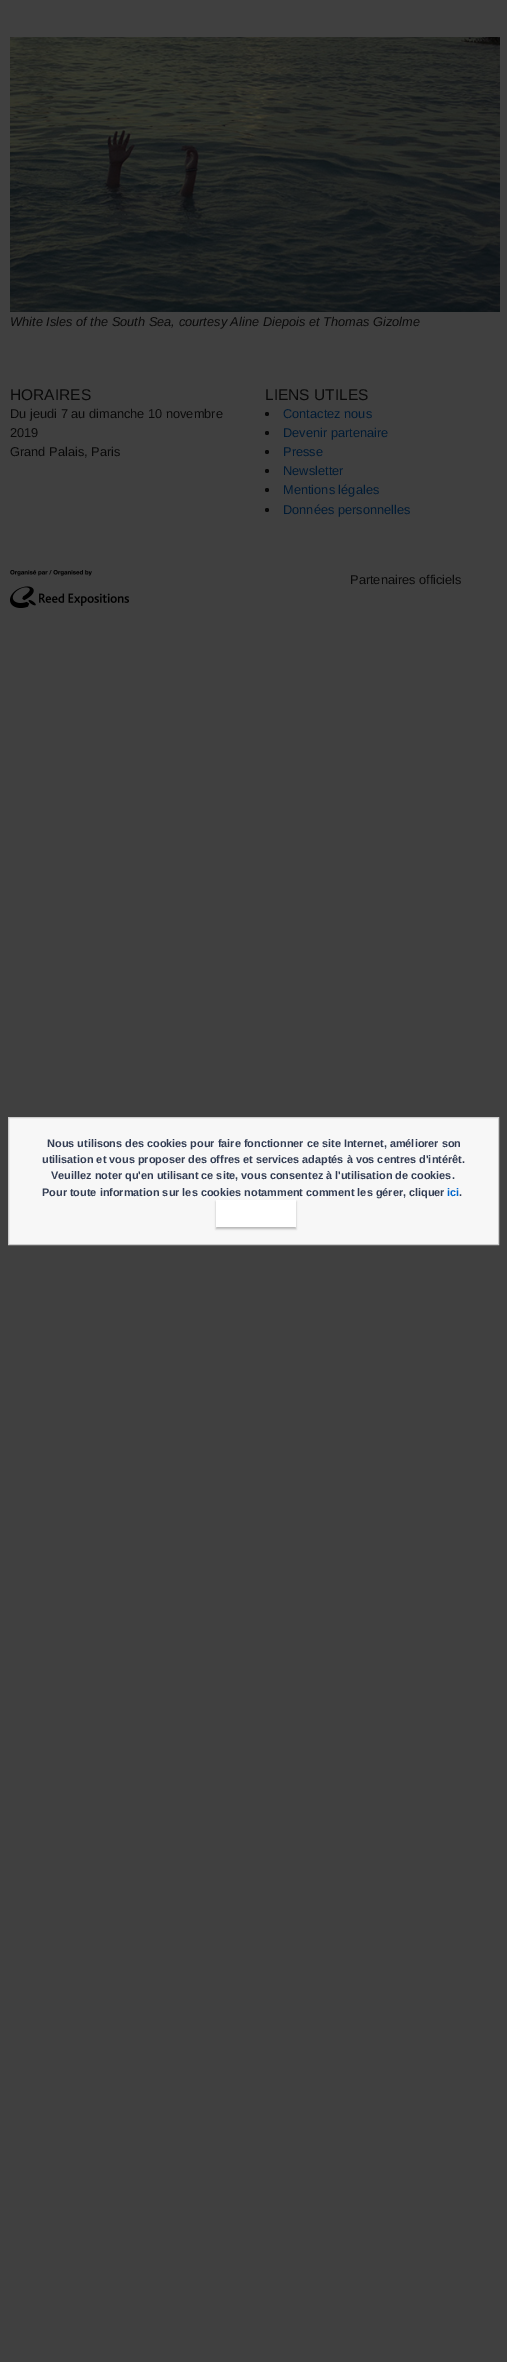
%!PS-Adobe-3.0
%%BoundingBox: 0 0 507 2362
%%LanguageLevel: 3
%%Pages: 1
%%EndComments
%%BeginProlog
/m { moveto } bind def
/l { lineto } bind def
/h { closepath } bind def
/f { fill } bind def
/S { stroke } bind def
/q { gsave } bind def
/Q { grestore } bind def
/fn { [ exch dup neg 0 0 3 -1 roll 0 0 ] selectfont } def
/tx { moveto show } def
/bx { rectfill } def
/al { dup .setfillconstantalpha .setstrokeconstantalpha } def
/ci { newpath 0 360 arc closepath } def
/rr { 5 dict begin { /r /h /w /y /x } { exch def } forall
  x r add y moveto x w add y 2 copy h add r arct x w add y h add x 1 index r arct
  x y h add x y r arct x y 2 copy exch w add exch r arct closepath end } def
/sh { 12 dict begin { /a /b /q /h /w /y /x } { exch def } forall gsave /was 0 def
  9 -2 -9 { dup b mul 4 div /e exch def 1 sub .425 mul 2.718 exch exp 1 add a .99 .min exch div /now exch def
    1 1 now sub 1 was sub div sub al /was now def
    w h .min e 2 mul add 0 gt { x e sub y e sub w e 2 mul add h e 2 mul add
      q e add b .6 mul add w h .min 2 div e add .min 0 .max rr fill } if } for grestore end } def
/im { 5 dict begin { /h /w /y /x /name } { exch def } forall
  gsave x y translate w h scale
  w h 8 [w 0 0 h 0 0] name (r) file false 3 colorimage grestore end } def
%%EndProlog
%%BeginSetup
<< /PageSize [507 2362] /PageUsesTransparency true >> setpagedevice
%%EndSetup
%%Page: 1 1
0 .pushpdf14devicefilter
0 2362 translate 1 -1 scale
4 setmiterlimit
0.251 setgray
0 0 507 2362 bx
(image0.raw) 10 37 490 275 im
/LiberationSans-Italic 12.8 fn
0.035 setgray
(White Isles of the South Sea, courtesy Aline Diepois et Thomas Gizolme) 10 326 tx
/LiberationSans-Regular 15.5 fn
(HORAIRES) 10 400 tx
/LiberationSans-Regular 12.8 fn
(Du jeudi 7 au dimanche 10 novembre) 10 418 tx
(2019) 10 437 tx
(Grand Palais, Paris) 10 456 tx
/LiberationSans-Regular 15.5 fn
(LIENS UTILES) 265 400 tx
267 414 2 ci f
/LiberationSans-Regular 12.8 fn
0 0.102 0.2 setrgbcolor
(Contactez nous) 283 418 tx
0.035 setgray
267 433 2 ci f
0 0.102 0.2 setrgbcolor
(Devenir partenaire) 283 437 tx
0.035 setgray
267 452 2 ci f
0 0.102 0.2 setrgbcolor
(Presse) 283 456 tx
0.035 setgray
267 471 2 ci f
0 0.102 0.2 setrgbcolor
(Newsletter) 283 475 tx
0.035 setgray
267 490 2 ci f
0 0.102 0.2 setrgbcolor
(Mentions légales) 283 494 tx
0.035 setgray
267 510 2 ci f
0 0.102 0.2 setrgbcolor
(Données personnelles) 283 514 tx
(image1.raw) 10 570 119 38 im
0.035 setgray
(Partenaires officiels) 350 584 tx
0.969 setgray
8.5 1117.5 m 498.5 1117.5 l 498.5 1244.5 l 8.5 1244.5 l h q f Q
0.8 setgray
S
/LiberationSans-Bold 10.9 fn
0.2 0.239 0.325 setrgbcolor
(Nous utilisons des cookies pour faire fonctionner ce site Internet, améliorer son) 47 1147 tx
(utilisation et vous proposer des offres et services adaptés à vos centres d'intérêt.) 42 1163 tx
(Veuillez noter qu'en utilisant ce site, vous consentez à l'utilisation de cookies.) 51 1179 tx
(Pour toute information sur les cookies notamment comment les gérer, cliquer) 42 1196 tx
0 0.4 0.8 setrgbcolor
(ici) 447 1196 tx
0.2 0.239 0.325 setrgbcolor
(.) 459 1196 tx
0 setgray
216 1202 80 27 0 1 0.25 sh
1 setgray
216 1200 80 27 bx
.poppdf14devicefilter showpage
%%EOF
